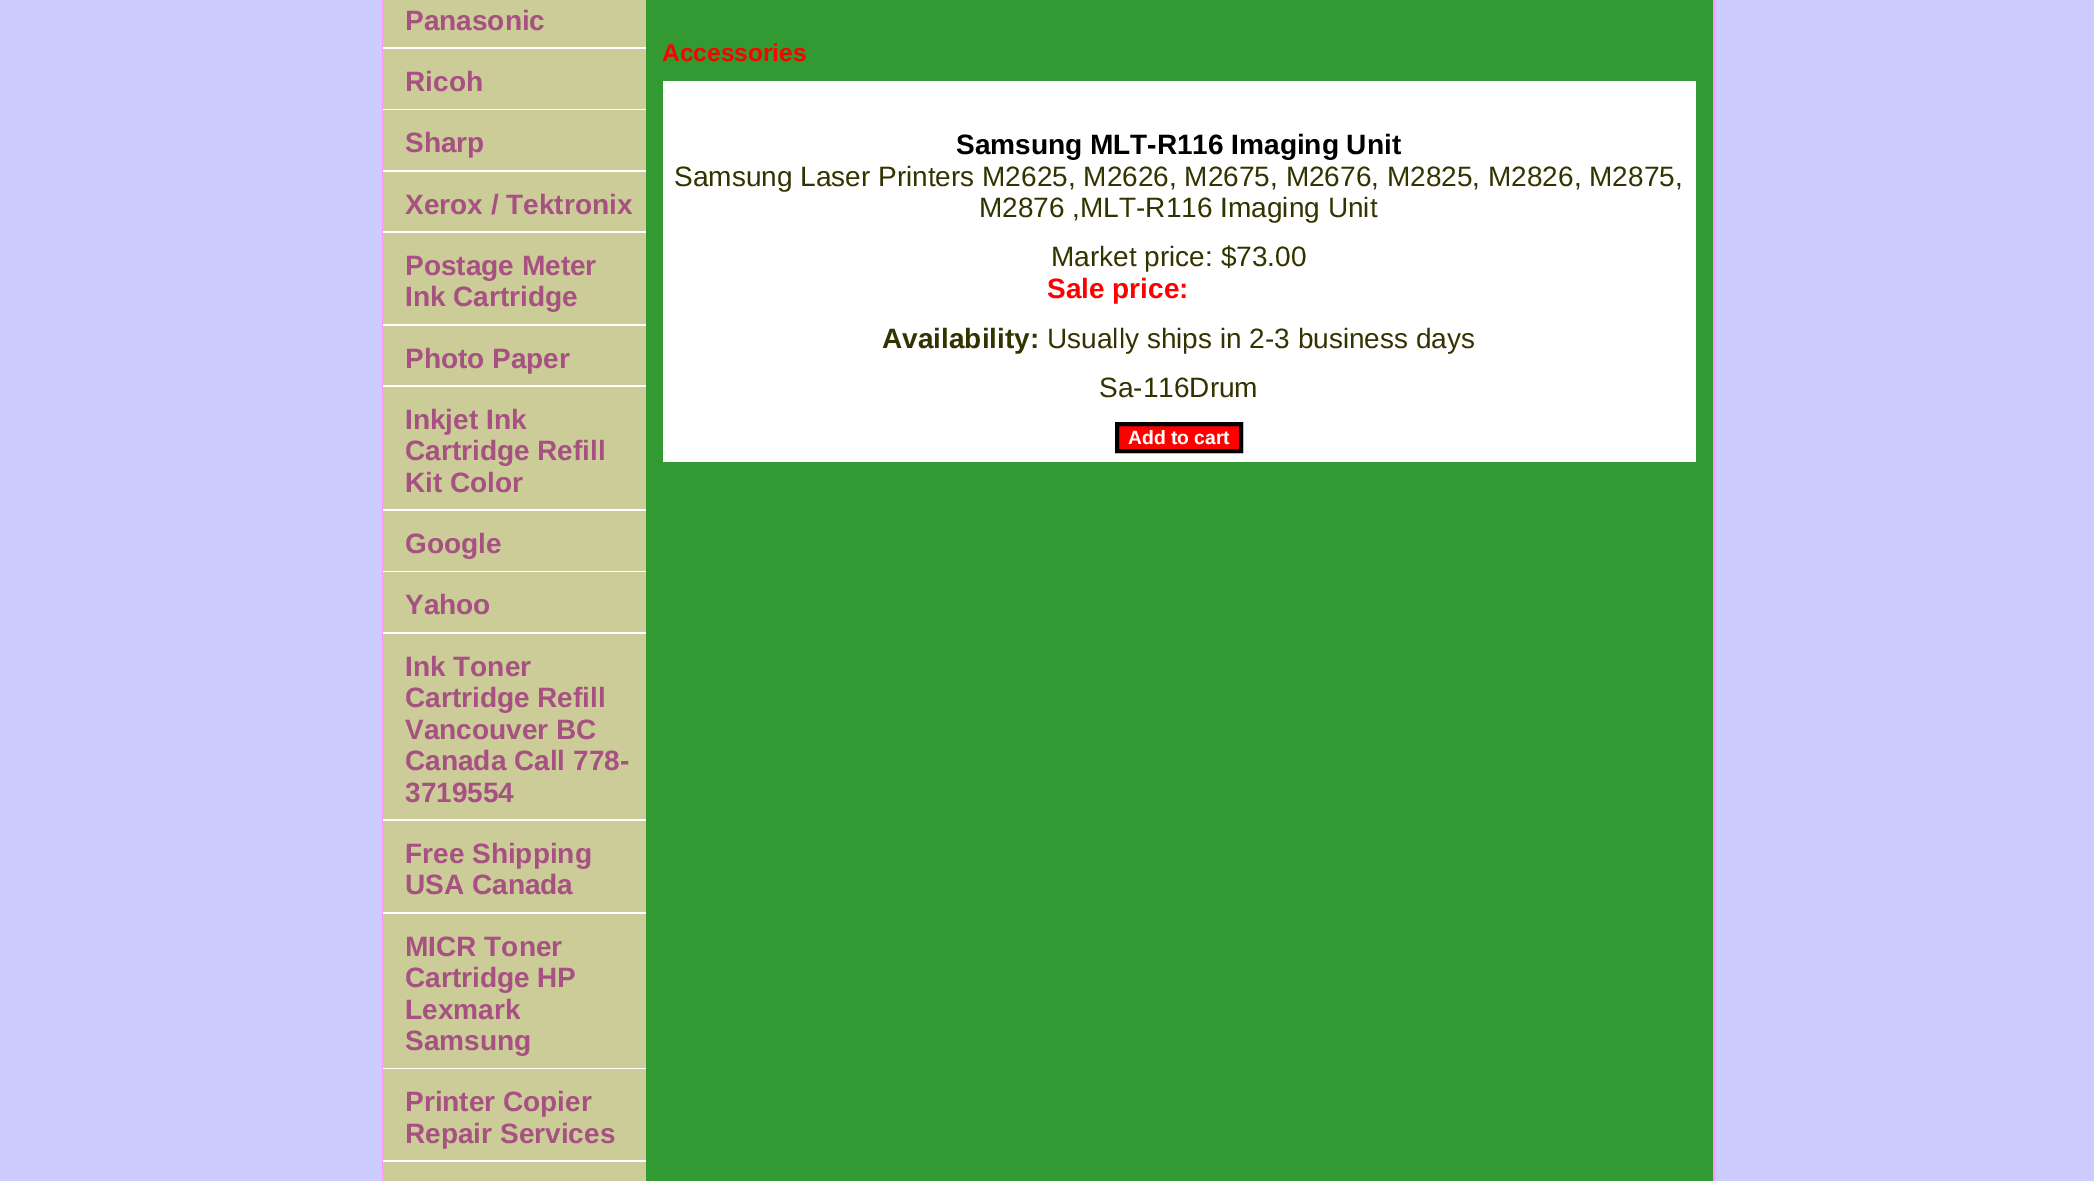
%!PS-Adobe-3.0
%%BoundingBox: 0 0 2094 1181
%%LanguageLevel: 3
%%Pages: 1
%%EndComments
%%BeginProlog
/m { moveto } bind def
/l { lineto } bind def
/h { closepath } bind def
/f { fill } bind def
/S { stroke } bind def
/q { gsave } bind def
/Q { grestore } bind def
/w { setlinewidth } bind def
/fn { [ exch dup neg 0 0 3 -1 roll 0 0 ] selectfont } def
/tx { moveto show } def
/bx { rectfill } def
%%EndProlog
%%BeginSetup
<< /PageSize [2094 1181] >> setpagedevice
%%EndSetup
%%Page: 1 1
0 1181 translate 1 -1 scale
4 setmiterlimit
0.8 0.8 1 setrgbcolor
0 0 2094 1181 bx
1 0.6 1 setrgbcolor
2 w
383 -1 1331 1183 rectstroke
0.2 0.6 0.2 setrgbcolor
646 0 1067 1181 bx
0.8 0.8 0.6 setrgbcolor
383 0 263 1181 bx
1 setgray
383 47 263 2 bx
/LiberationSans-Bold 28 fn
0.655 0.318 0.514 setrgbcolor
(Panasonic) 405 30 tx
1 setgray
383 109 263 1 bx
0.655 0.318 0.514 setrgbcolor
(Ricoh) 405 91 tx
1 setgray
383 170 263 2 bx
0.655 0.318 0.514 setrgbcolor
(Sharp) 405 152 tx
1 setgray
383 231 263 2 bx
0.655 0.318 0.514 setrgbcolor
(Xerox / Tektronix) 405 214 tx
1 setgray
383 324 263 2 bx
0.655 0.318 0.514 setrgbcolor
(Postage Meter) 405 275 tx
(Ink Cartridge) 405 306 tx
1 setgray
383 385 263 2 bx
0.655 0.318 0.514 setrgbcolor
(Photo Paper) 405 368 tx
1 setgray
383 509 263 2 bx
0.655 0.318 0.514 setrgbcolor
(Inkjet Ink) 405 429 tx
(Cartridge Refill) 405 460 tx
(Kit Color) 405 492 tx
1 setgray
383 571 263 1 bx
0.655 0.318 0.514 setrgbcolor
(Google) 405 553 tx
1 setgray
383 632 263 2 bx
0.655 0.318 0.514 setrgbcolor
(Yahoo) 405 614 tx
1 setgray
383 819 263 2 bx
0.655 0.318 0.514 setrgbcolor
(Ink Toner) 405 676 tx
(Cartridge Refill) 405 707 tx
(Vancouver BC) 405 739 tx
(Canada Call 778-) 405 770 tx
(3719554) 405 802 tx
1 setgray
383 912 263 2 bx
0.655 0.318 0.514 setrgbcolor
(Free Shipping) 405 863 tx
(USA Canada) 405 894 tx
1 setgray
383 1068 263 1 bx
0.655 0.318 0.514 setrgbcolor
(MICR Toner) 405 956 tx
(Cartridge HP) 405 987 tx
(Lexmark) 405 1019 tx
(Samsung) 405 1050 tx
1 setgray
383 1160 263 2 bx
0.655 0.318 0.514 setrgbcolor
(Printer Copier) 405 1111 tx
(Repair Services) 405 1143 tx
/LiberationSans-Bold 24.5 fn
1 0 0 setrgbcolor
(Accessories) 662 61 tx
1 setgray
663 81 1033 381 bx
/LiberationSans-Bold 28 fn
0 setgray
(Samsung MLT-R116 Imaging Unit) 956 154 tx
/LiberationSans-Regular 28 fn
0.2 0.2 0 setrgbcolor
(Samsung Laser Printers M2625, M2626, M2675, M2676, M2825, M2826, M2875,) 674 186 tx
(M2876 ,MLT-R116 Imaging Unit) 979 217 tx
(Market price: $73.00) 1051 266 tx
/LiberationSans-Bold 28 fn
1 0 0 setrgbcolor
(Sale price:) 1047 298 tx
0.2 0.2 0 setrgbcolor
(Availability:) 882 348 tx
/LiberationSans-Regular 28 fn
(Usually ships in 2-3 business days) 1047 348 tx
(Sa-116Drum) 1099 397 tx
1 0 0 setrgbcolor
1117 424 m 1241 424 l 1241 451 l 1117 451 l h q f Q
0 setgray
4 w
S
/LiberationSans-Bold 19.25 fn
1 setgray
(Add to cart) 1128 444 tx
showpage
%%EOF
